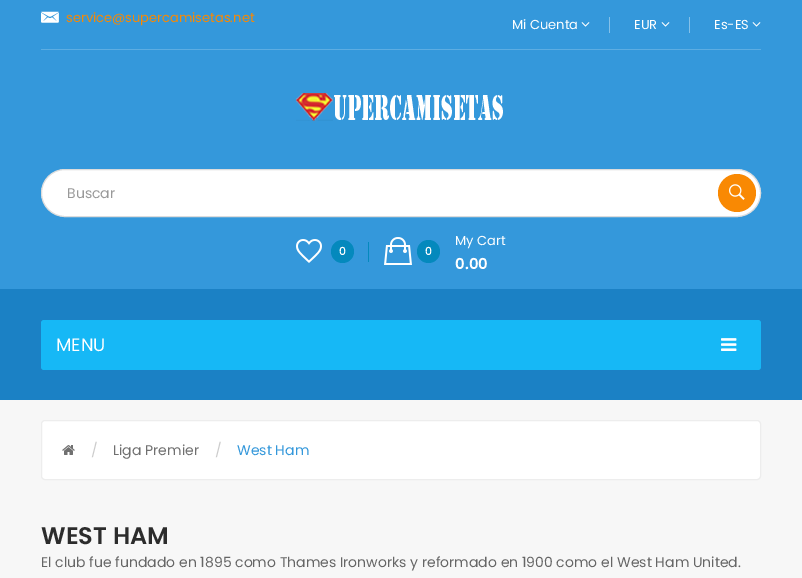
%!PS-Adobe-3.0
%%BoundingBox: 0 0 802 578
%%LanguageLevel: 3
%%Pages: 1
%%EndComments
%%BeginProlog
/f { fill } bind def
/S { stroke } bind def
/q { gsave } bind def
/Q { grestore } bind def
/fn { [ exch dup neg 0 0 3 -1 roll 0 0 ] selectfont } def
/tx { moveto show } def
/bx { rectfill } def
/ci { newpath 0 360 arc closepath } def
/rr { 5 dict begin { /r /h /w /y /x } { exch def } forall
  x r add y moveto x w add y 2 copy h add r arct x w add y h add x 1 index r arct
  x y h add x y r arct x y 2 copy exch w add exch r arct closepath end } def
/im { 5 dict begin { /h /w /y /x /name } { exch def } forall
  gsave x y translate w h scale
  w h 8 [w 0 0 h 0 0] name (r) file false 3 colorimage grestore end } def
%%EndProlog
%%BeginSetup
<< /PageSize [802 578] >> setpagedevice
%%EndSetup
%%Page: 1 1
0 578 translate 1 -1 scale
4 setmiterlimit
0.969 setgray
0 0 802 578 bx
0.204 0.596 0.859 setrgbcolor
0 0 802 289 bx
0.365 0.678 0.886 setrgbcolor
41 49 720 1 bx
(image0.raw) 41 11 18 12 im
/Poppins-Regular 13 fn
0.976 0.537 0.012 setrgbcolor
(service@supercamisetas.net) 66 22 tx
1 setgray
(Mi Cuenta) 512 29 tx
(image1.raw) 581 22 9 5 im
0.522 0.757 0.914 setrgbcolor
609 17 1 16 bx
1 setgray
(EUR) 634 29 tx
(image1.raw) 661 22 9 5 im
0.522 0.757 0.914 setrgbcolor
689 17 1 16 bx
1 setgray
(Es-ES) 714 29 tx
(image1.raw) 752 22 9 5 im
(image2.raw) 296 93 207 28 im
41.5 169.5 719 47 23.5 rr q f Q
0.863 setgray
S
/Poppins-Regular 14 fn
0.6 setgray
(Buscar) 67 198 tx
0.976 0.537 0.012 setrgbcolor
737 193 19 ci f
(image3.raw) 729 184 16 16 im
(image4.raw) 296 239 26 24 im
0.016 0.537 0.741 setrgbcolor
342.5 251.5 11.5 ci f
/Poppins-Medium 11 fn
1 setgray
(0) 339 255 tx
0.016 0.537 0.741 setrgbcolor
368 242 1 20 bx
(image5.raw) 384 237 28 28 im
428.5 251.5 11.5 ci f
1 setgray
(0) 425 255 tx
/Poppins-Regular 13 fn
(My Cart) 455 245 tx
/Poppins-SemiBold 15 fn
(0.00) 455 269 tx
0.106 0.506 0.773 setrgbcolor
0 289 802 111 bx
0.086 0.722 0.965 setrgbcolor
41 320 720 50 3 rr f
/Poppins-Regular 18 fn
1 setgray
(MENU) 56 351 tx
(image6.raw) 721 338 16 13 im
41.5 420.5 719 59 3.5 rr q f Q
0.929 setgray
S
(image7.raw) 62 445 13 10 im
/Poppins-Regular 14 fn
0.8 setgray
(/) 91 455 tx
0.439 setgray
(Liga Premier) 113 455 tx
0.8 setgray
(/) 215 455 tx
0.204 0.596 0.859 setrgbcolor
(West Ham) 237 455 tx
/Poppins-SemiBold 24 fn
0.173 setgray
(WEST HAM) 41 544 tx
/Poppins-Regular 14 fn
0.4 setgray
(El club fue fundado en 1895 como Thames Ironworks y reformado en 1900 como el West Ham United.) 41 567 tx
showpage
%%EOF
